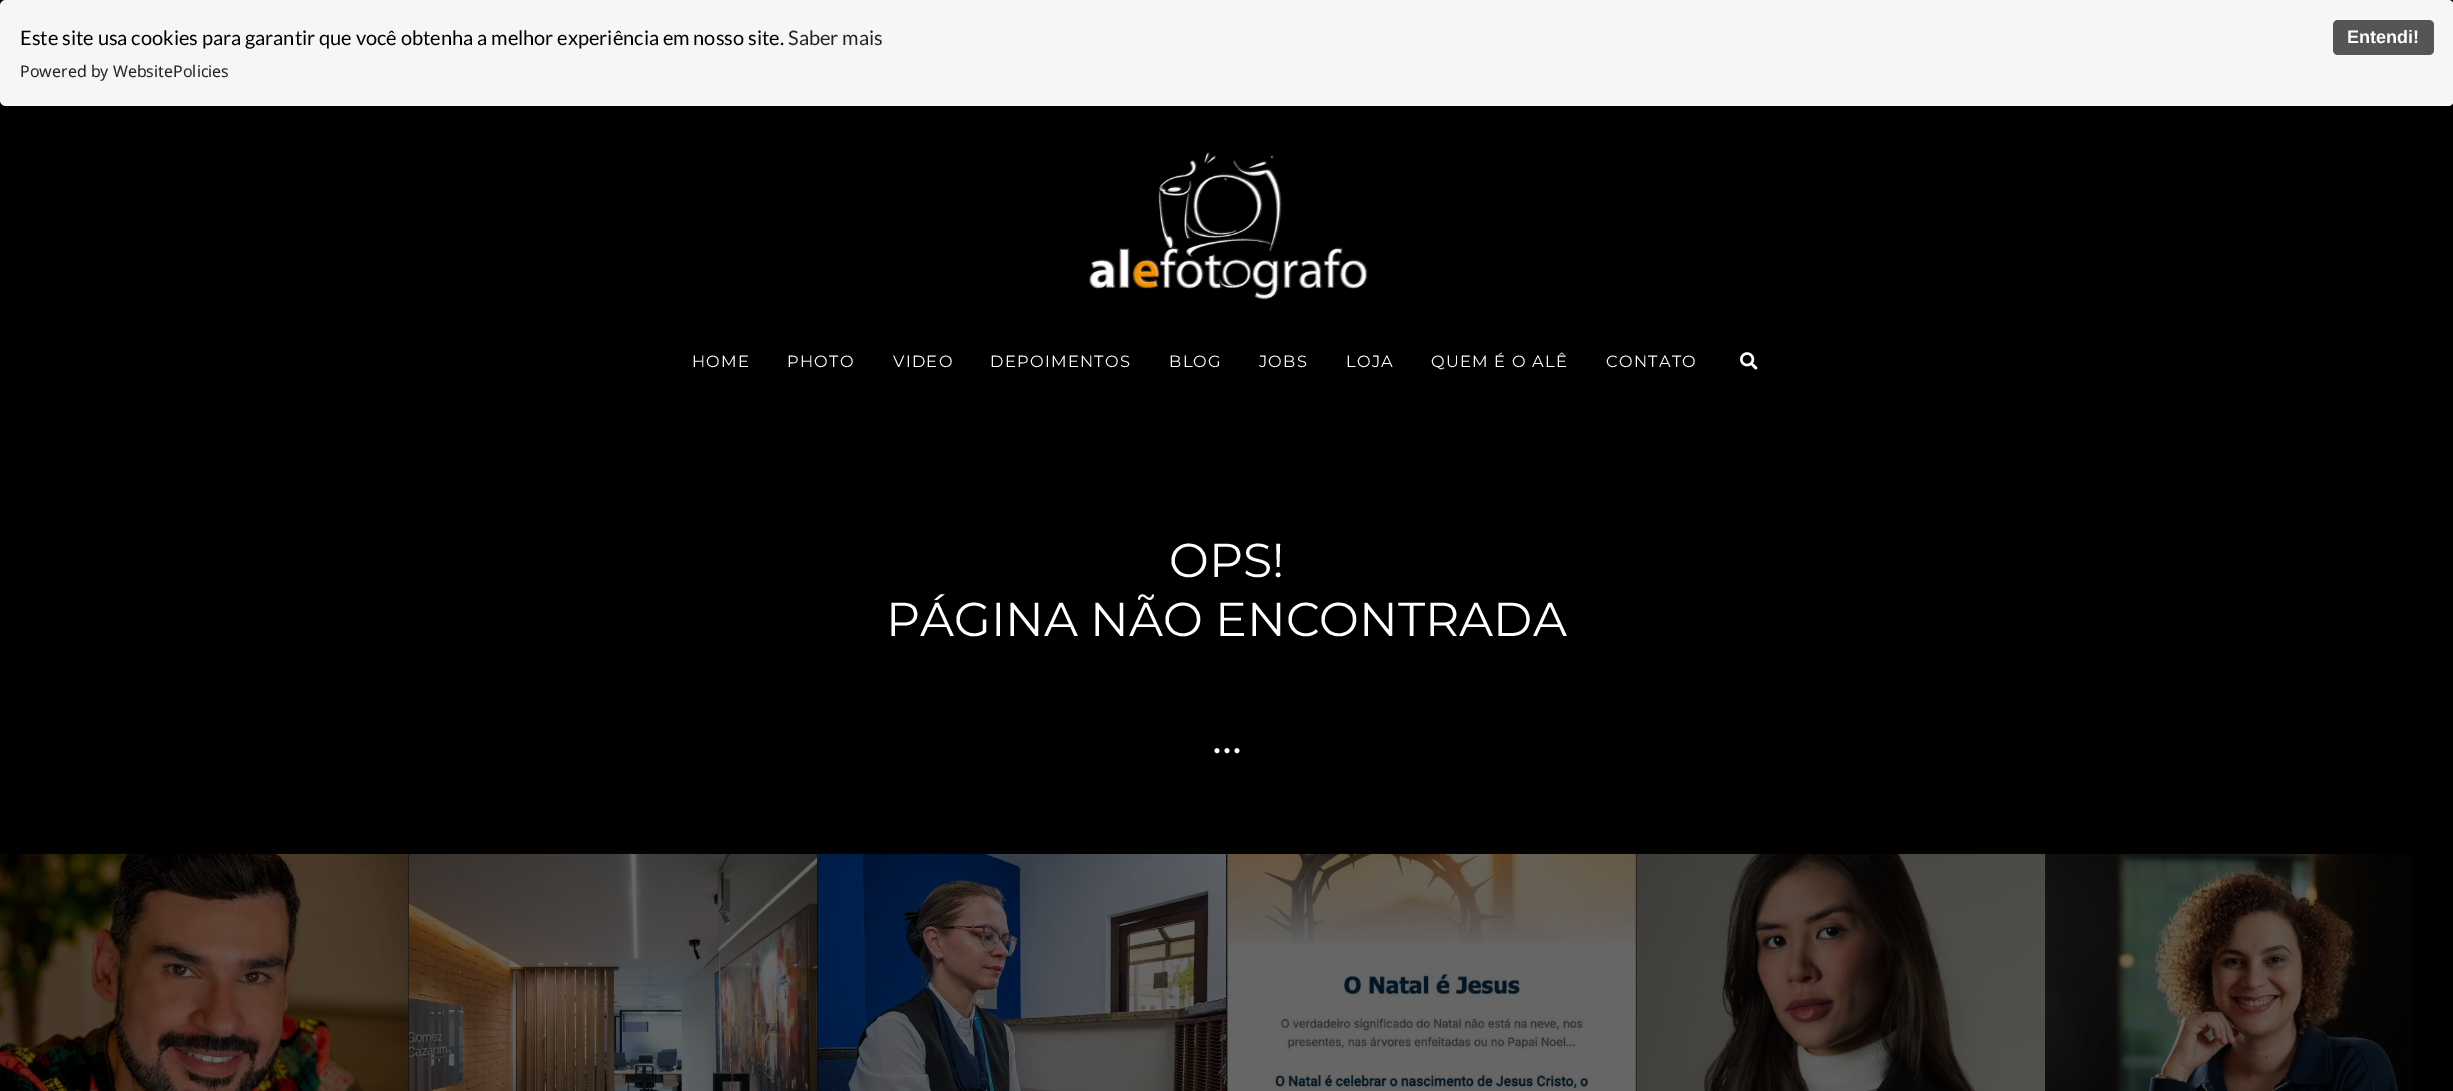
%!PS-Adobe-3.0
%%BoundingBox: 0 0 2453 1091
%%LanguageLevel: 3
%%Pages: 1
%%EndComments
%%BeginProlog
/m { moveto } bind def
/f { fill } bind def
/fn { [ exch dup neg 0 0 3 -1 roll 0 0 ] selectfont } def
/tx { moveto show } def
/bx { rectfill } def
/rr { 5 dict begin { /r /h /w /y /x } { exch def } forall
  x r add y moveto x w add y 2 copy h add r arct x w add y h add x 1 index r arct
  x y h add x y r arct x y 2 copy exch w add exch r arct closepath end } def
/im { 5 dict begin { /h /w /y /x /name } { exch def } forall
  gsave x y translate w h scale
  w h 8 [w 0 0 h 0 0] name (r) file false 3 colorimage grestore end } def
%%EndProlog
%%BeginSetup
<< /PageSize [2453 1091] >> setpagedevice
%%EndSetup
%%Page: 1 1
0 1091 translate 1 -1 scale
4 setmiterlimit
0 setgray
0 0 2453 1091 bx
0.965 setgray
0 0 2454 106 6 rr f
/Lato-Regular 20 fn
0 setgray
(Este site usa cookies para garantir que você obtenha a melhor experiência em nosso site.) 20 45 tx
0.145 setgray
(Saber mais) 788 45 tx
0.333 setgray
2333 20 101 35 5 rr f
/LiberationSans-Bold 18 fn
1 setgray
(Entendi!) 2347 43 tx
/NotoSans-Regular 16 fn
0.145 setgray
(Powered by WebsitePolicies) 20 77 tx
(image0.raw) 1089 152 279 148 im
/Montserrat-Regular 16.25 fn
1 setgray
692 367 m 1.25 0 (HOME) ashow
787 367 m 1.25 0 (PHOTO) ashow
893 367 m 1.25 0 (VIDEO) ashow
990 367 m 1.25 0 (DEPOIMENTOS) ashow
1169 367 m 1.25 0 (BLOG) ashow
1259 367 m 1.25 0 (JOBS) ashow
1346 367 m 1.25 0 (LOJA) ashow
1431 367 m 1.25 0 (QUEM É O ALÊ) ashow
1606 367 m 1.25 0 (CONTATO) ashow
(image1.raw) 1740 352 18 18 im
/Montserrat-Regular 47.5 fn
(OPS!) 1169 577 tx
(PÁGINA NÃO ENCONTRADA) 886 636 tx
(...) 1212 753 tx
(image2.raw) 0 853 409 238 im
(image3.raw) 408 853 410 238 im
(image4.raw) 817 853 410 238 im
(image5.raw) 1226 853 410 238 im
(image6.raw) 1636 853 409 238 im
(image7.raw) 2045 854 367 237 im
showpage
%%EOF
